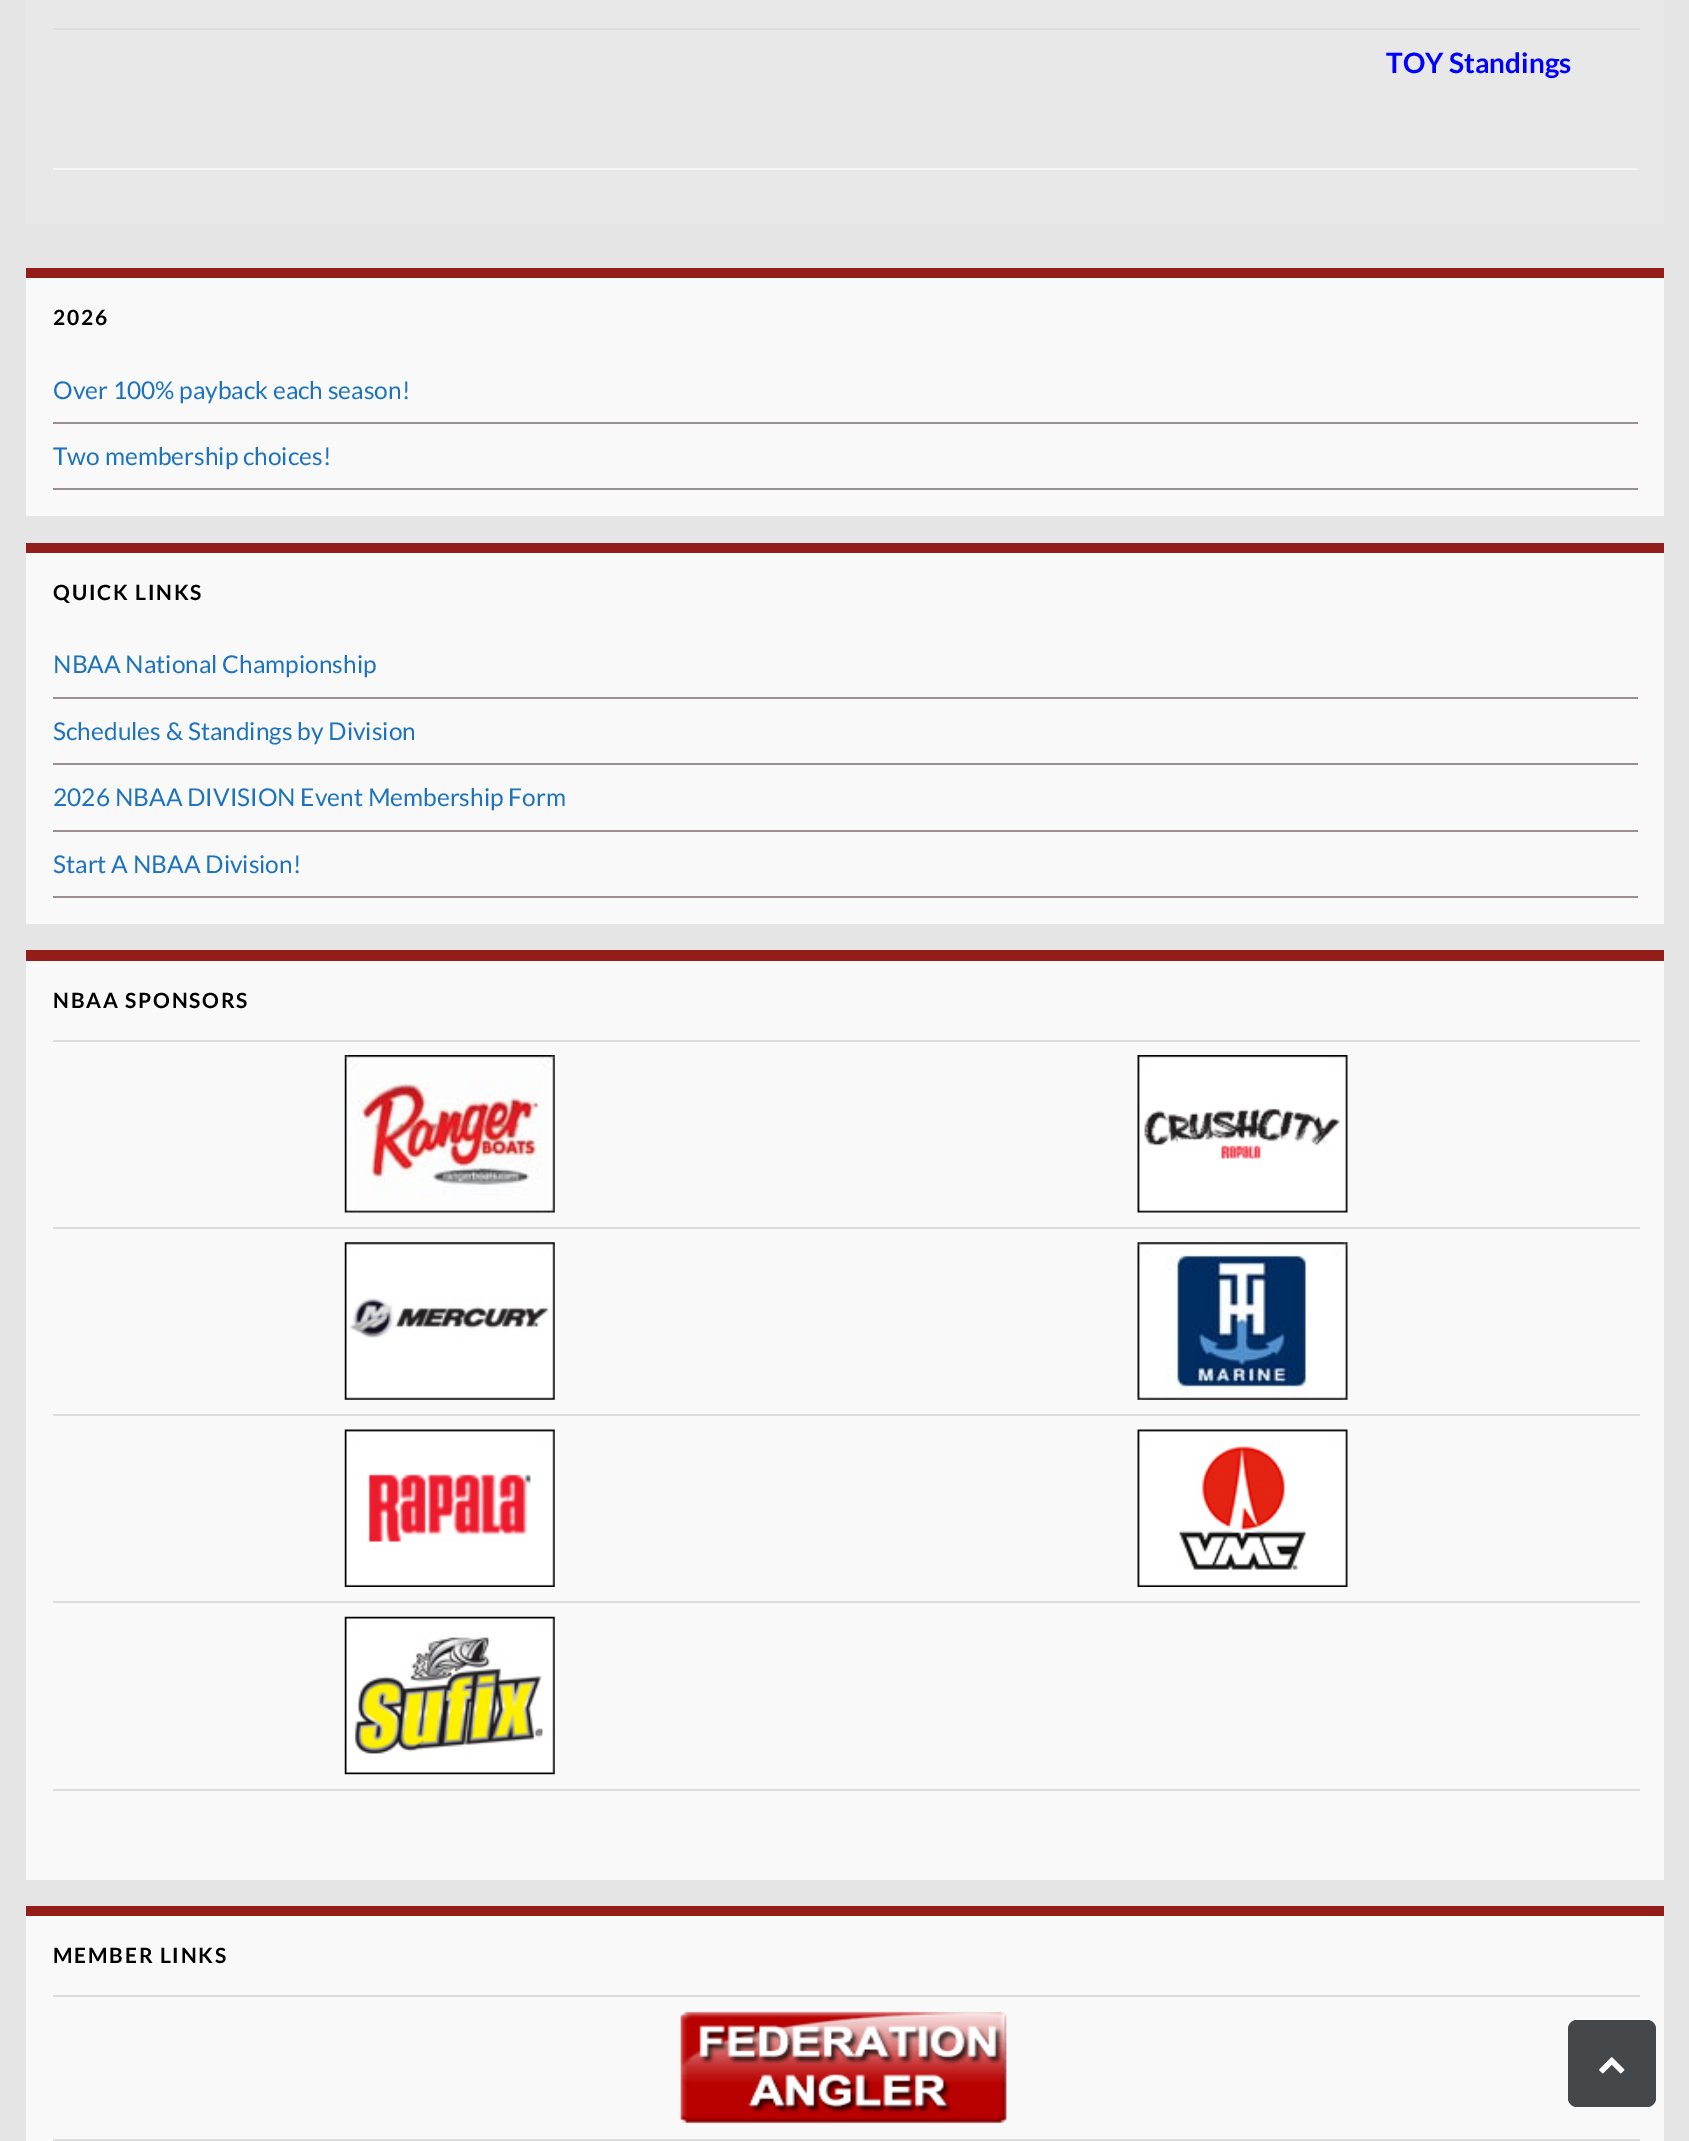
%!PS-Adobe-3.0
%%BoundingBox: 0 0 1689 2141
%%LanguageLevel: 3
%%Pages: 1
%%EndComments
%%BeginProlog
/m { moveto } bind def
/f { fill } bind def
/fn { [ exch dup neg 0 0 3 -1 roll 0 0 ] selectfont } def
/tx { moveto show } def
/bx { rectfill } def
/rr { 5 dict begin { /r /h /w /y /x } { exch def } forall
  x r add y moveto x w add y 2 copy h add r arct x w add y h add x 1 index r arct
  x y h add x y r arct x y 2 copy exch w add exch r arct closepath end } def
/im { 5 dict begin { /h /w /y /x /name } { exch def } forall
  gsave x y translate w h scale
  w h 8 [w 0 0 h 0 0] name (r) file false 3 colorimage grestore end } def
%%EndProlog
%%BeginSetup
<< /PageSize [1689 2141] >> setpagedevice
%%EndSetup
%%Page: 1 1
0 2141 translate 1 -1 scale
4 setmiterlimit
0.898 setgray
0 0 1689 2141 bx
0.91 setgray
26 0 1638 224 bx
0.867 setgray
53 28 1587 2 bx
/Lato-Bold 28 fn
0 0 1 setrgbcolor
(TOY Standings) 1386 73 tx
0.961 setgray
53 168 1585 2 bx
0.976 setgray
26 278 1638 238 bx
0.573 0.114 0.098 setrgbcolor
26 268 1638 10 bx
/Lato-Bold 21 fn
0 setgray
53 325 m 1.75 0 (2026) ashow
0.616 0.561 0.561 setrgbcolor
53 422 1585 2 bx
/Lato-Regular 24.5 fn
0.118 0.451 0.745 setrgbcolor
(Over 100% payback each season!) 53 399 tx
0.616 0.561 0.561 setrgbcolor
53 488 1585 2 bx
0.118 0.451 0.745 setrgbcolor
(Two membership choices!) 53 465 tx
0.976 setgray
26 553 1638 371 bx
0.573 0.114 0.098 setrgbcolor
26 543 1638 10 bx
/Lato-Bold 21 fn
0 setgray
53 600 m 1.75 0 (QUICK LINKS) ashow
0.616 0.561 0.561 setrgbcolor
53 697 1585 2 bx
/Lato-Regular 24.5 fn
0.118 0.451 0.745 setrgbcolor
(NBAA National Championship) 53 673 tx
0.616 0.561 0.561 setrgbcolor
53 763 1585 2 bx
0.118 0.451 0.745 setrgbcolor
(Schedules & Standings by Division) 53 740 tx
0.616 0.561 0.561 setrgbcolor
53 830 1585 2 bx
0.118 0.451 0.745 setrgbcolor
(2026 NBAA DIVISION Event Membership Form) 53 806 tx
0.616 0.561 0.561 setrgbcolor
53 896 1585 2 bx
0.118 0.451 0.745 setrgbcolor
(Start A NBAA Division!) 53 873 tx
0.976 setgray
26 961 1638 919 bx
0.573 0.114 0.098 setrgbcolor
26 950 1638 11 bx
/Lato-Bold 21 fn
0 setgray
53 1008 m 1.75 0 (NBAA SPONSORS) ashow
0.867 setgray
53 1040 1587 2 bx
(image0.raw) 344 1055 211 158 im
(image1.raw) 1137 1055 211 158 im
53 1227 1587 2 bx
(image2.raw) 344 1242 211 158 im
(image3.raw) 1137 1242 211 158 im
53 1414 1587 2 bx
(image4.raw) 344 1429 211 158 im
(image5.raw) 1137 1429 211 158 im
53 1601 1587 2 bx
(image6.raw) 344 1616 211 159 im
53 1789 1587 2 bx
0.976 setgray
26 1916 1638 225 bx
0.573 0.114 0.098 setrgbcolor
26 1906 1638 10 bx
0 setgray
53 1963 m 1.75 0 (MEMBER LINKS) ashow
0.867 setgray
53 1995 1587 2 bx
(image7.raw) 680 2011 327 113 im
53 2139 1587 2 bx
0.271 0.282 0.29 setrgbcolor
1568 2020 88 87 9 rr f
(image8.raw) 1599 2057 26 17 im
showpage
%%EOF
